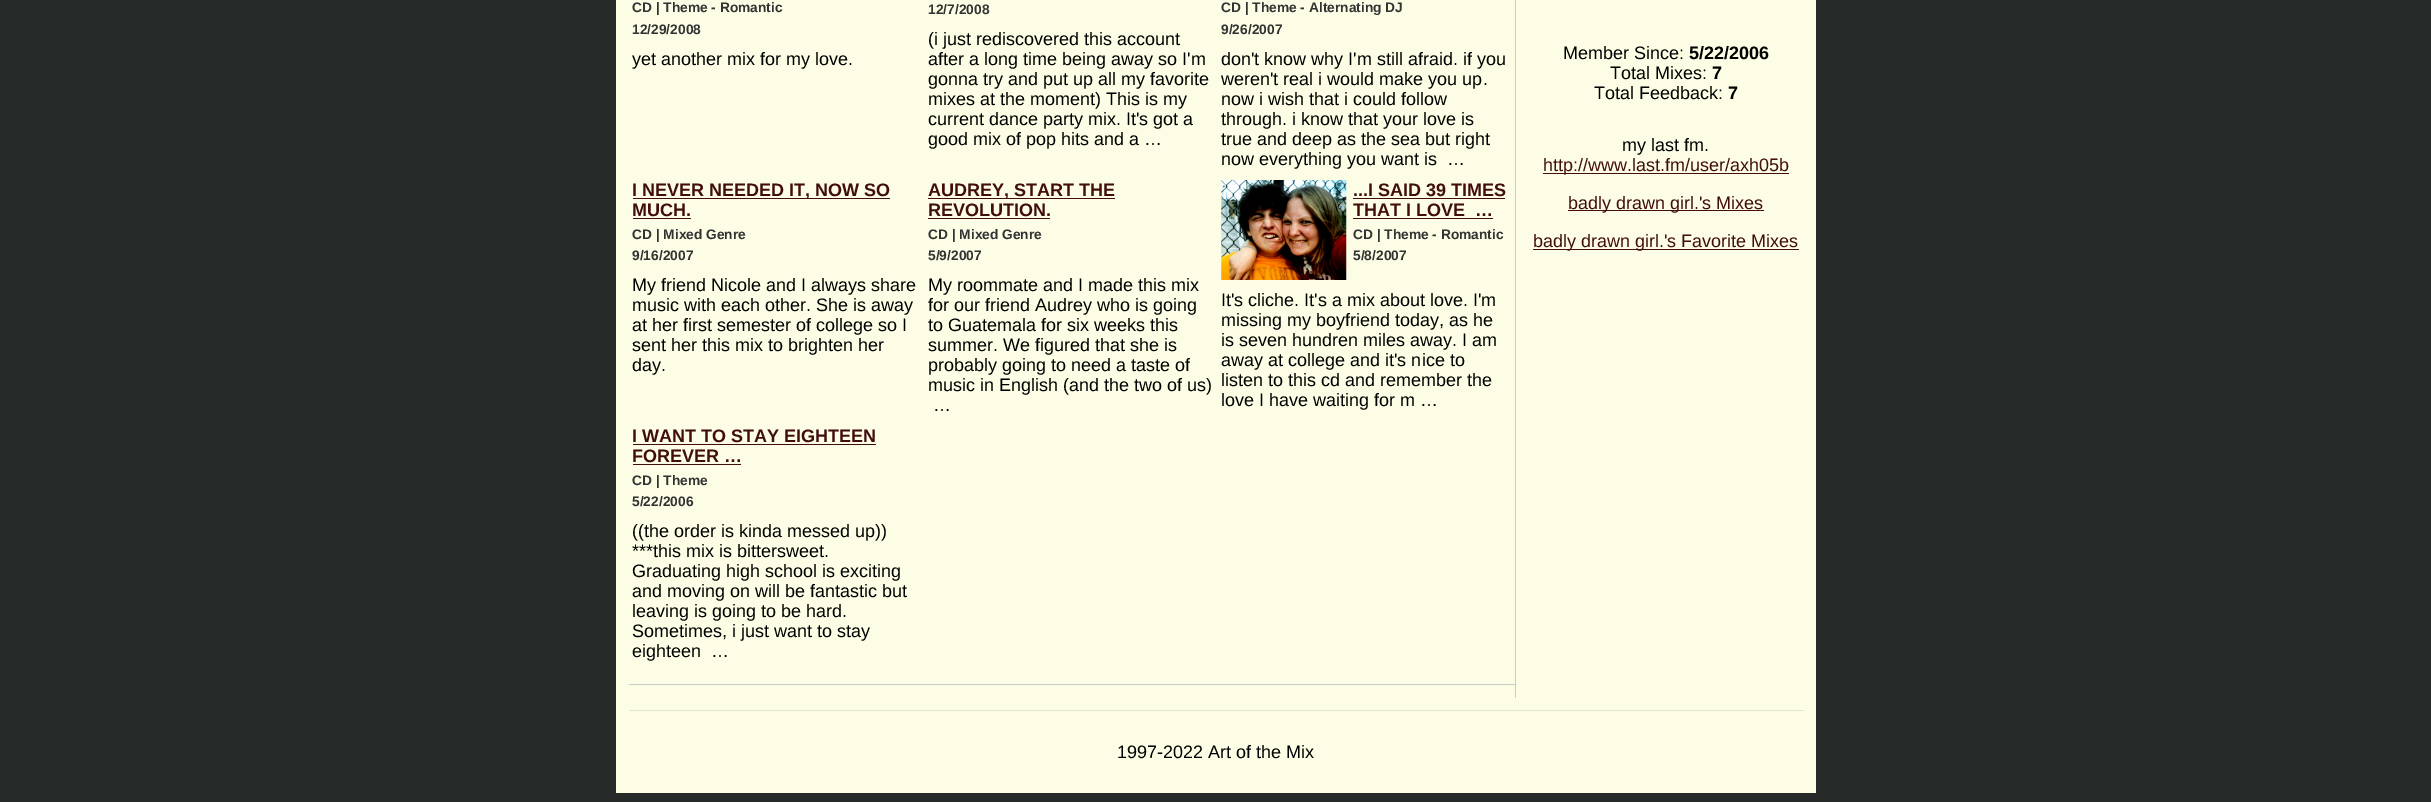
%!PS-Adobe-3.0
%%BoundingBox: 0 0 2431 802
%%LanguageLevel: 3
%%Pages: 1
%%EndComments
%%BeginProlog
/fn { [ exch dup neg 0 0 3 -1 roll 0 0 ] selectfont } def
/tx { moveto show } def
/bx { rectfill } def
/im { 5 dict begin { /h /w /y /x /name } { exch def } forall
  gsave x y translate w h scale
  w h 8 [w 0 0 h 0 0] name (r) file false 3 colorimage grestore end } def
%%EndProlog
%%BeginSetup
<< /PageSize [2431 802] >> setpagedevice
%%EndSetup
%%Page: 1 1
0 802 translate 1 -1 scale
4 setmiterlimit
0.145 0.165 0.161 setrgbcolor
0 0 2431 802 bx
0.992 0.992 0.898 setrgbcolor
616 0 1200 793 bx
0.8 setgray
1515 0 1 698 bx
/LiberationSans-Bold 13.75 fn
0.2 setgray
(CD | Theme - Romantic) 632 12 tx
(12/29/2008) 632 34 tx
/LiberationSans-Regular 18 fn
0 setgray
(yet another mix for my love.) 632 65 tx
/LiberationSans-Bold 13.75 fn
0.2 setgray
(12/7/2008) 928 14 tx
/LiberationSans-Regular 18 fn
0 setgray
(\(i just rediscovered this account) 928 45 tx
(after a long time being away so I'm) 928 65 tx
(gonna try and put up all my favorite) 928 85 tx
(mixes at the moment\) This is my) 928 105 tx
(current dance party mix. It's got a) 928 125 tx
(good mix of pop hits and a …) 928 145 tx
/LiberationSans-Bold 13.75 fn
0.2 setgray
(CD | Theme - Alternating DJ) 1221 12 tx
(9/26/2007) 1221 34 tx
/LiberationSans-Regular 18 fn
0 setgray
(don't know why I'm still afraid. if you) 1221 65 tx
(weren't real i would make you up.) 1221 85 tx
(now i wish that i could follow) 1221 105 tx
(through. i know that your love is) 1221 125 tx
(true and deep as the sea but right) 1221 145 tx
(now everything you want is  …) 1221 165 tx
0.255 0.051 0.051 setrgbcolor
633 198 257 1 bx
/LiberationSans-Bold 18 fn
(I NEVER NEEDED IT, NOW SO) 632 196 tx
(MUCH.) 632 216 tx
633 218 58 1 bx
/LiberationSans-Bold 13.75 fn
0.2 setgray
(CD | Mixed Genre) 632 239 tx
(9/16/2007) 632 260 tx
/LiberationSans-Regular 18 fn
0 setgray
(My friend Nicole and I always share) 632 291 tx
(music with each other. She is away) 632 311 tx
(at her first semester of college so I) 632 331 tx
(sent her this mix to brighten her) 632 351 tx
(day.) 632 371 tx
0.255 0.051 0.051 setrgbcolor
928 198 187 1 bx
/LiberationSans-Bold 18 fn
(AUDREY, START THE) 928 196 tx
(REVOLUTION.) 928 216 tx
928 218 122 1 bx
/LiberationSans-Bold 13.75 fn
0.2 setgray
(CD | Mixed Genre) 928 239 tx
(5/9/2007) 928 260 tx
/LiberationSans-Regular 18 fn
0 setgray
(My roommate and I made this mix) 928 291 tx
(for our friend Audrey who is going) 928 311 tx
(to Guatemala for six weeks this) 928 331 tx
(summer. We figured that she is) 928 351 tx
(probably going to need a taste of) 928 371 tx
(music in English \(and the two of us\)) 928 391 tx
(…) 933 411 tx
(image0.raw) 1221 180 126 100 im
/LiberationSans-Bold 18 fn
0.255 0.051 0.051 setrgbcolor
(...I SAID 39 TIMES) 1353 196 tx
1353 198 152 1 bx
(THAT I LOVE  …) 1353 216 tx
1353 218 140 1 bx
/LiberationSans-Bold 13.75 fn
0.2 setgray
(CD | Theme - Romantic) 1353 239 tx
(5/8/2007) 1353 260 tx
/LiberationSans-Regular 18 fn
0 setgray
(It's cliche. It's a mix about love. I'm) 1221 306 tx
(missing my boyfriend today, as he) 1221 326 tx
(is seven hundren miles away. I am) 1221 346 tx
(away at college and it's nice to) 1221 366 tx
(listen to this cd and remember the) 1221 386 tx
(love I have waiting for m …) 1221 406 tx
/LiberationSans-Bold 18 fn
0.255 0.051 0.051 setrgbcolor
(I WANT TO STAY EIGHTEEN) 632 442 tx
633 444 243 1 bx
(FOREVER …) 632 462 tx
633 464 108 1 bx
/LiberationSans-Bold 13.75 fn
0.2 setgray
(CD | Theme) 632 485 tx
(5/22/2006) 632 506 tx
/LiberationSans-Regular 18 fn
0 setgray
(\(\(the order is kinda messed up\)\)) 632 537 tx
(***this mix is bittersweet.) 632 557 tx
(Graduating high school is exciting) 632 577 tx
(and moving on will be fantastic but) 632 597 tx
(leaving is going to be hard.) 632 617 tx
(Sometimes, i just want to stay) 632 637 tx
(eighteen  …) 632 657 tx
0.8 setgray
629 684 886 1 bx
0 setgray
(Member Since:) 1563 59 tx
/LiberationSans-Bold 18 fn
(5/22/2006) 1689 59 tx
/LiberationSans-Regular 18 fn
(Total Mixes:) 1610 79 tx
/LiberationSans-Bold 18 fn
(7) 1712 79 tx
/LiberationSans-Regular 18 fn
(Total Feedback:) 1594 99 tx
/LiberationSans-Bold 18 fn
(7) 1728 99 tx
/LiberationSans-Regular 18 fn
(my last fm.) 1622 151 tx
0.255 0.051 0.051 setrgbcolor
1543 173 246 1 bx
(http://www.last.fm/user/axh05b) 1543 171 tx
1568 210 196 1 bx
(badly drawn girl.'s Mixes) 1568 209 tx
1533 249 266 1 bx
(badly drawn girl.'s Favorite Mixes) 1533 247 tx
0.89 0.91 0.788 setrgbcolor
629 710 1175 1 bx
0 setgray
(1997-2022 Art of the Mix) 1117 758 tx
showpage
%%EOF
